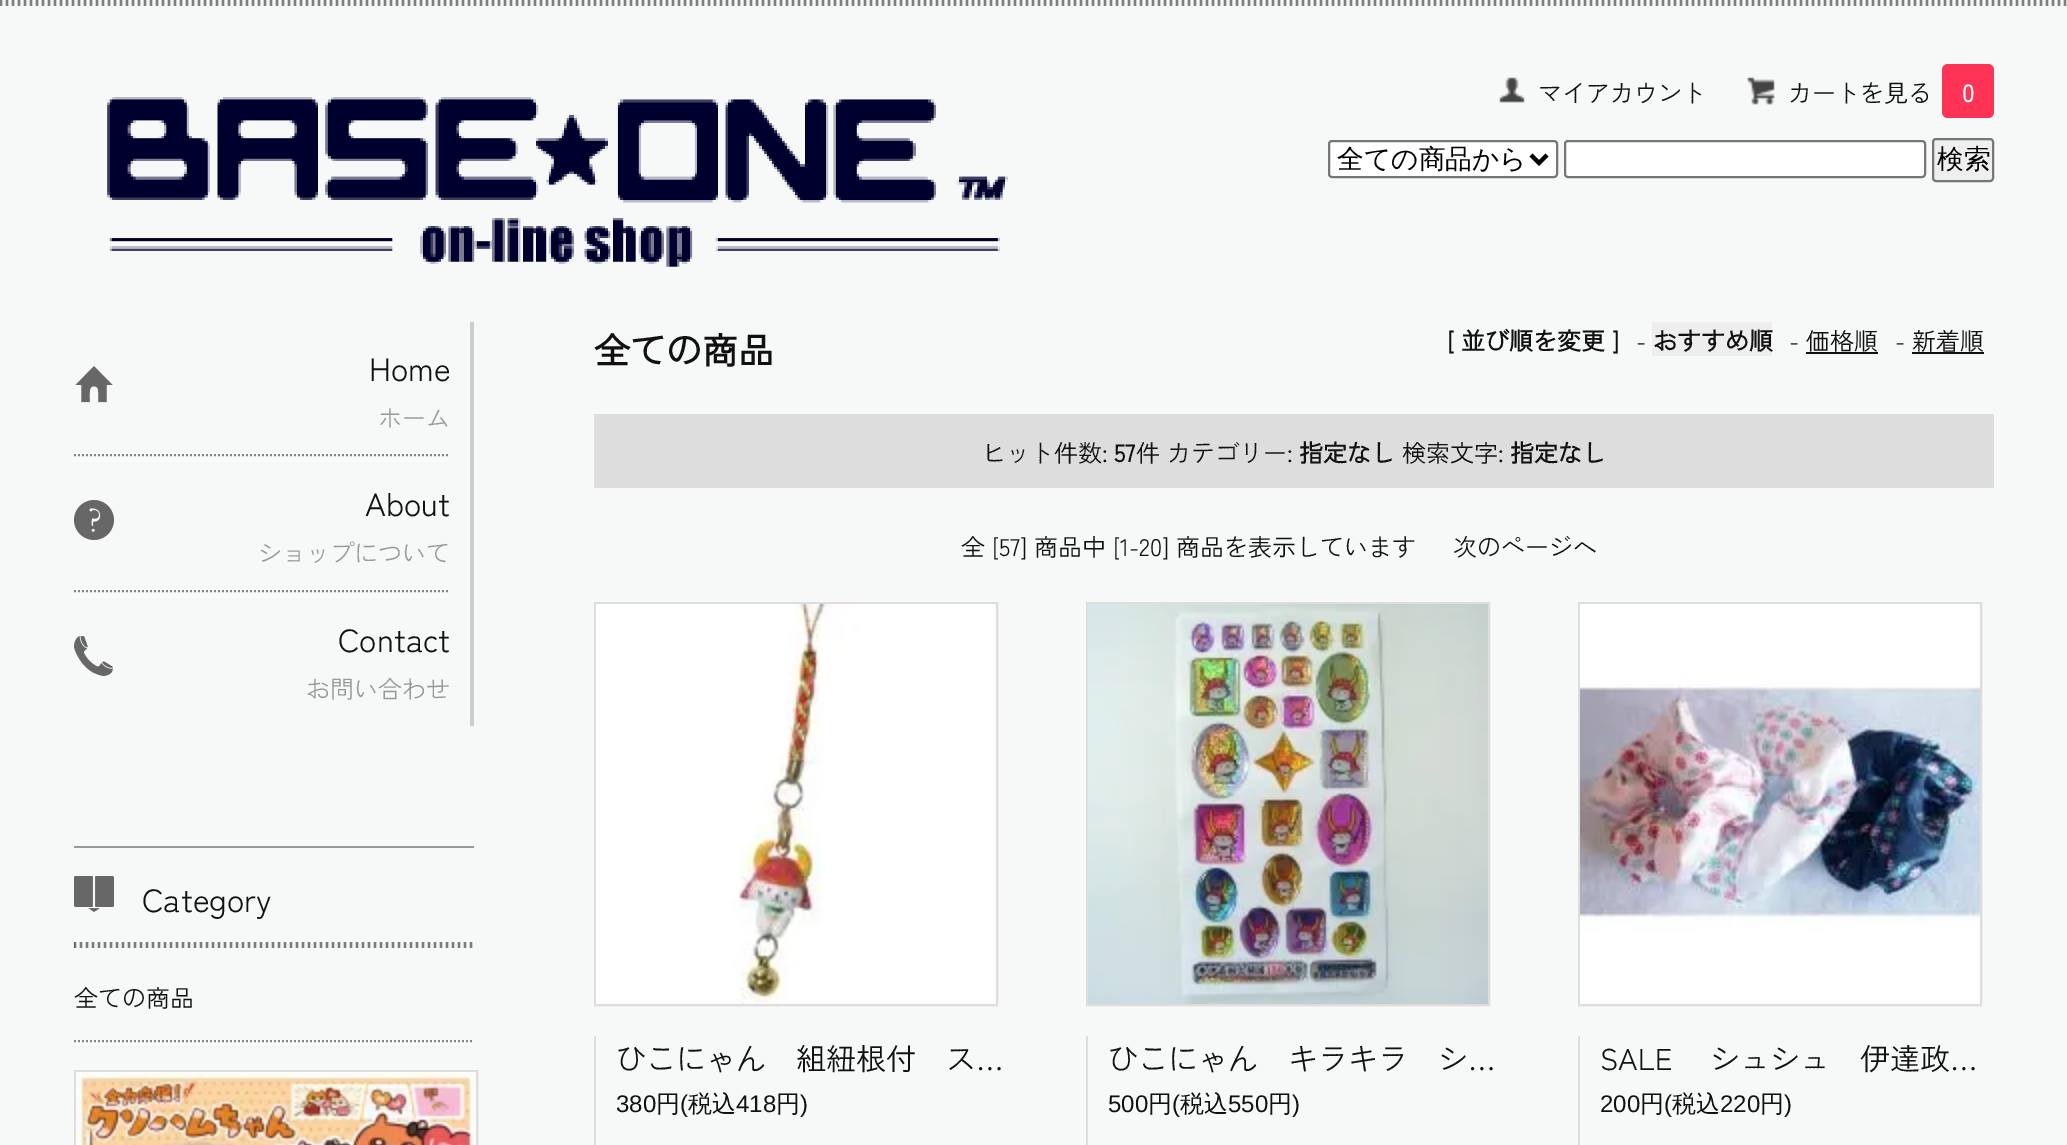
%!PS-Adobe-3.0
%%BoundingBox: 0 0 2067 1145
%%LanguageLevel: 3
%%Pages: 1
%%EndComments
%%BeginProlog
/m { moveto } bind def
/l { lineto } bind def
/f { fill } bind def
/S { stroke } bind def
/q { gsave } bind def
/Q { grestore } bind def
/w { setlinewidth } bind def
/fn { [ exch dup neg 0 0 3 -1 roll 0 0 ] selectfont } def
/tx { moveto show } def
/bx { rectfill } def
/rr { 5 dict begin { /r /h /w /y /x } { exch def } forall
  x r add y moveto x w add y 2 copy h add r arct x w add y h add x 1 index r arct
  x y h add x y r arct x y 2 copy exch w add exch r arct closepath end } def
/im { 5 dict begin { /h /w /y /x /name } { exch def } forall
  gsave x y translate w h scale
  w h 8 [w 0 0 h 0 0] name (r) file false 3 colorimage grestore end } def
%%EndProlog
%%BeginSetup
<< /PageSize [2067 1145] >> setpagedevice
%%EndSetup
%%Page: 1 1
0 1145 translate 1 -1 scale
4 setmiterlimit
0.969 0.973 0.973 setrgbcolor
0 0 2067 1145 bx
(image0.raw) 0 0 2067 6 im
(image1.raw) 1499 77 26 26 im
/ZenKakuGothicAntique-Regular 24 fn
0.067 setgray
(マイアカウント) 1538 102 tx
(image2.raw) 1747 77 28 28 im
(カートを見る) 1788 102 tx
1 0.2 0.333 setrgbcolor
1942 64 52 54 6 rr f
/ZenKakuGothicAntique-Bold 24 fn
1 setgray
(0) 1962 102 tx
(image3.raw) 107 97 901 170 im
1329 141 228 36 3 rr q f Q
0.463 setgray
2 w
S
0 setgray
4 w
1531 155 m 1539 163 l 1547 155 l S
/WenQuanYiZenHei-Medium 26.75 fn
(全ての商品から) 1337 168 tx
1 setgray
1565 141 360 36 3 rr q f Q
0.463 setgray
2 w
S
0.937 setgray
1933 139 60 42 3 rr q f Q
0.463 setgray
S
0 setgray
(検索) 1937 168 tx
0.8 setgray
470 322 4 404 bx
(image4.raw) 75 366 38 37 im
/ZenKakuGothicAntique-Regular 32 fn
0.067 setgray
(Home) 369 381 tx
/ZenKakuGothicAntique-Regular 24 fn
0.6 setgray
(ホーム) 378 427 tx
0.514 setgray
[2 2] 0 setdash
74 455 m 450 455 l S
(image5.raw) 74 500 40 40 im
/ZenKakuGothicAntique-Regular 32 fn
0.067 setgray
(About) 365 516 tx
/ZenKakuGothicAntique-Regular 24 fn
0.6 setgray
(ショップについて) 258 562 tx
0.514 setgray
74 591 m 450 591 l S
(image6.raw) 74 636 39 40 im
/ZenKakuGothicAntique-Regular 32 fn
0.067 setgray
(Contact) 338 652 tx
/ZenKakuGothicAntique-Regular 24 fn
0.6 setgray
(お問い合わせ) 306 698 tx
74 846 400 2 bx
(image7.raw) 74 942 399 6 im
(image8.raw) 74 876 40 36 im
/ZenKakuGothicAntique-Regular 32 fn
0.067 setgray
(Category) 142 912 tx
/ZenKakuGothicAntique-Regular 24 fn
(全ての商品) 74 1007 tx
0.514 setgray
74 1041 m 474 1041 l S
0.867 setgray
[] 0 setdash
75 1071 402 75 rectstroke
(image9.raw) 76 1072 400 73 im
/ZenKakuGothicAntique-Bold 36 fn
0.067 setgray
(全ての商品) 594 364 tx
/ZenKakuGothicAntique-Bold 24 fn
([ 並び順を変更 ]) 1447 350 tx
/ZenKakuGothicAntique-Regular 24 fn
(-) 1636 350 tx
0.933 setgray
1652 322 120 34 bx
/ZenKakuGothicAntique-Bold 24 fn
0.067 setgray
(おすすめ順) 1653 350 tx
/ZenKakuGothicAntique-Regular 24 fn
(- 価格順) 1789 350 tx
(- 新着順) 1895 350 tx
1806 352 72 2 bx
1912 352 72 2 bx
0.867 setgray
594 414 1400 74 bx
0.067 setgray
(ヒット件数:) 982 462 tx
/ZenKakuGothicAntique-Bold 24 fn
(57) 1114 462 tx
/ZenKakuGothicAntique-Regular 24 fn
(件 カテゴリー:) 1136 462 tx
/ZenKakuGothicAntique-Bold 24 fn
(指定なし) 1299 462 tx
/ZenKakuGothicAntique-Regular 24 fn
(検索文字:) 1402 462 tx
/ZenKakuGothicAntique-Bold 24 fn
(指定なし) 1510 462 tx
/ZenKakuGothicAntique-Regular 24 fn
(全 [57] 商品中 [1-20] 商品を表示しています) 961 556 tx
(次のページへ) 1453 556 tx
0.867 setgray
595 603 402 402 rectstroke
(image10.raw) 596 604 400 400 im
594 1036 2 109 bx
/ZenKakuGothicAntique-Regular 30 fn
0.067 setgray
(ひこにゃん　組紐根付　ス…) 616 1070 tx
/LiberationSans-Regular 24 fn
(380) 616 1112 tx
/WenQuanYiZenHei-Medium 24 fn
(円) 656 1112 tx
/LiberationSans-Regular 24 fn
(\() 680 1112 tx
/WenQuanYiZenHei-Medium 24 fn
(税込) 688 1112 tx
/LiberationSans-Regular 24 fn
(418) 736 1112 tx
/WenQuanYiZenHei-Medium 24 fn
(円) 776 1112 tx
/LiberationSans-Regular 24 fn
(\)) 800 1112 tx
0.867 setgray
1087 603 402 402 rectstroke
(image11.raw) 1088 604 400 400 im
1086 1036 2 109 bx
/ZenKakuGothicAntique-Regular 30 fn
0.067 setgray
(ひこにゃん　キラキラ　シ…) 1108 1070 tx
/LiberationSans-Regular 24 fn
(500) 1108 1112 tx
/WenQuanYiZenHei-Medium 24 fn
(円) 1148 1112 tx
/LiberationSans-Regular 24 fn
(\() 1172 1112 tx
/WenQuanYiZenHei-Medium 24 fn
(税込) 1180 1112 tx
/LiberationSans-Regular 24 fn
(550) 1228 1112 tx
/WenQuanYiZenHei-Medium 24 fn
(円) 1268 1112 tx
/LiberationSans-Regular 24 fn
(\)) 1292 1112 tx
0.867 setgray
1579 603 402 402 rectstroke
(image12.raw) 1580 604 400 400 im
1578 1036 2 109 bx
/ZenKakuGothicAntique-Regular 30 fn
0.067 setgray
(SALE 　シュシュ　伊達政…) 1600 1070 tx
/LiberationSans-Regular 24 fn
(200) 1600 1112 tx
/WenQuanYiZenHei-Medium 24 fn
(円) 1640 1112 tx
/LiberationSans-Regular 24 fn
(\() 1664 1112 tx
/WenQuanYiZenHei-Medium 24 fn
(税込) 1672 1112 tx
/LiberationSans-Regular 24 fn
(220) 1720 1112 tx
/WenQuanYiZenHei-Medium 24 fn
(円) 1760 1112 tx
/LiberationSans-Regular 24 fn
(\)) 1784 1112 tx
showpage
%%EOF
